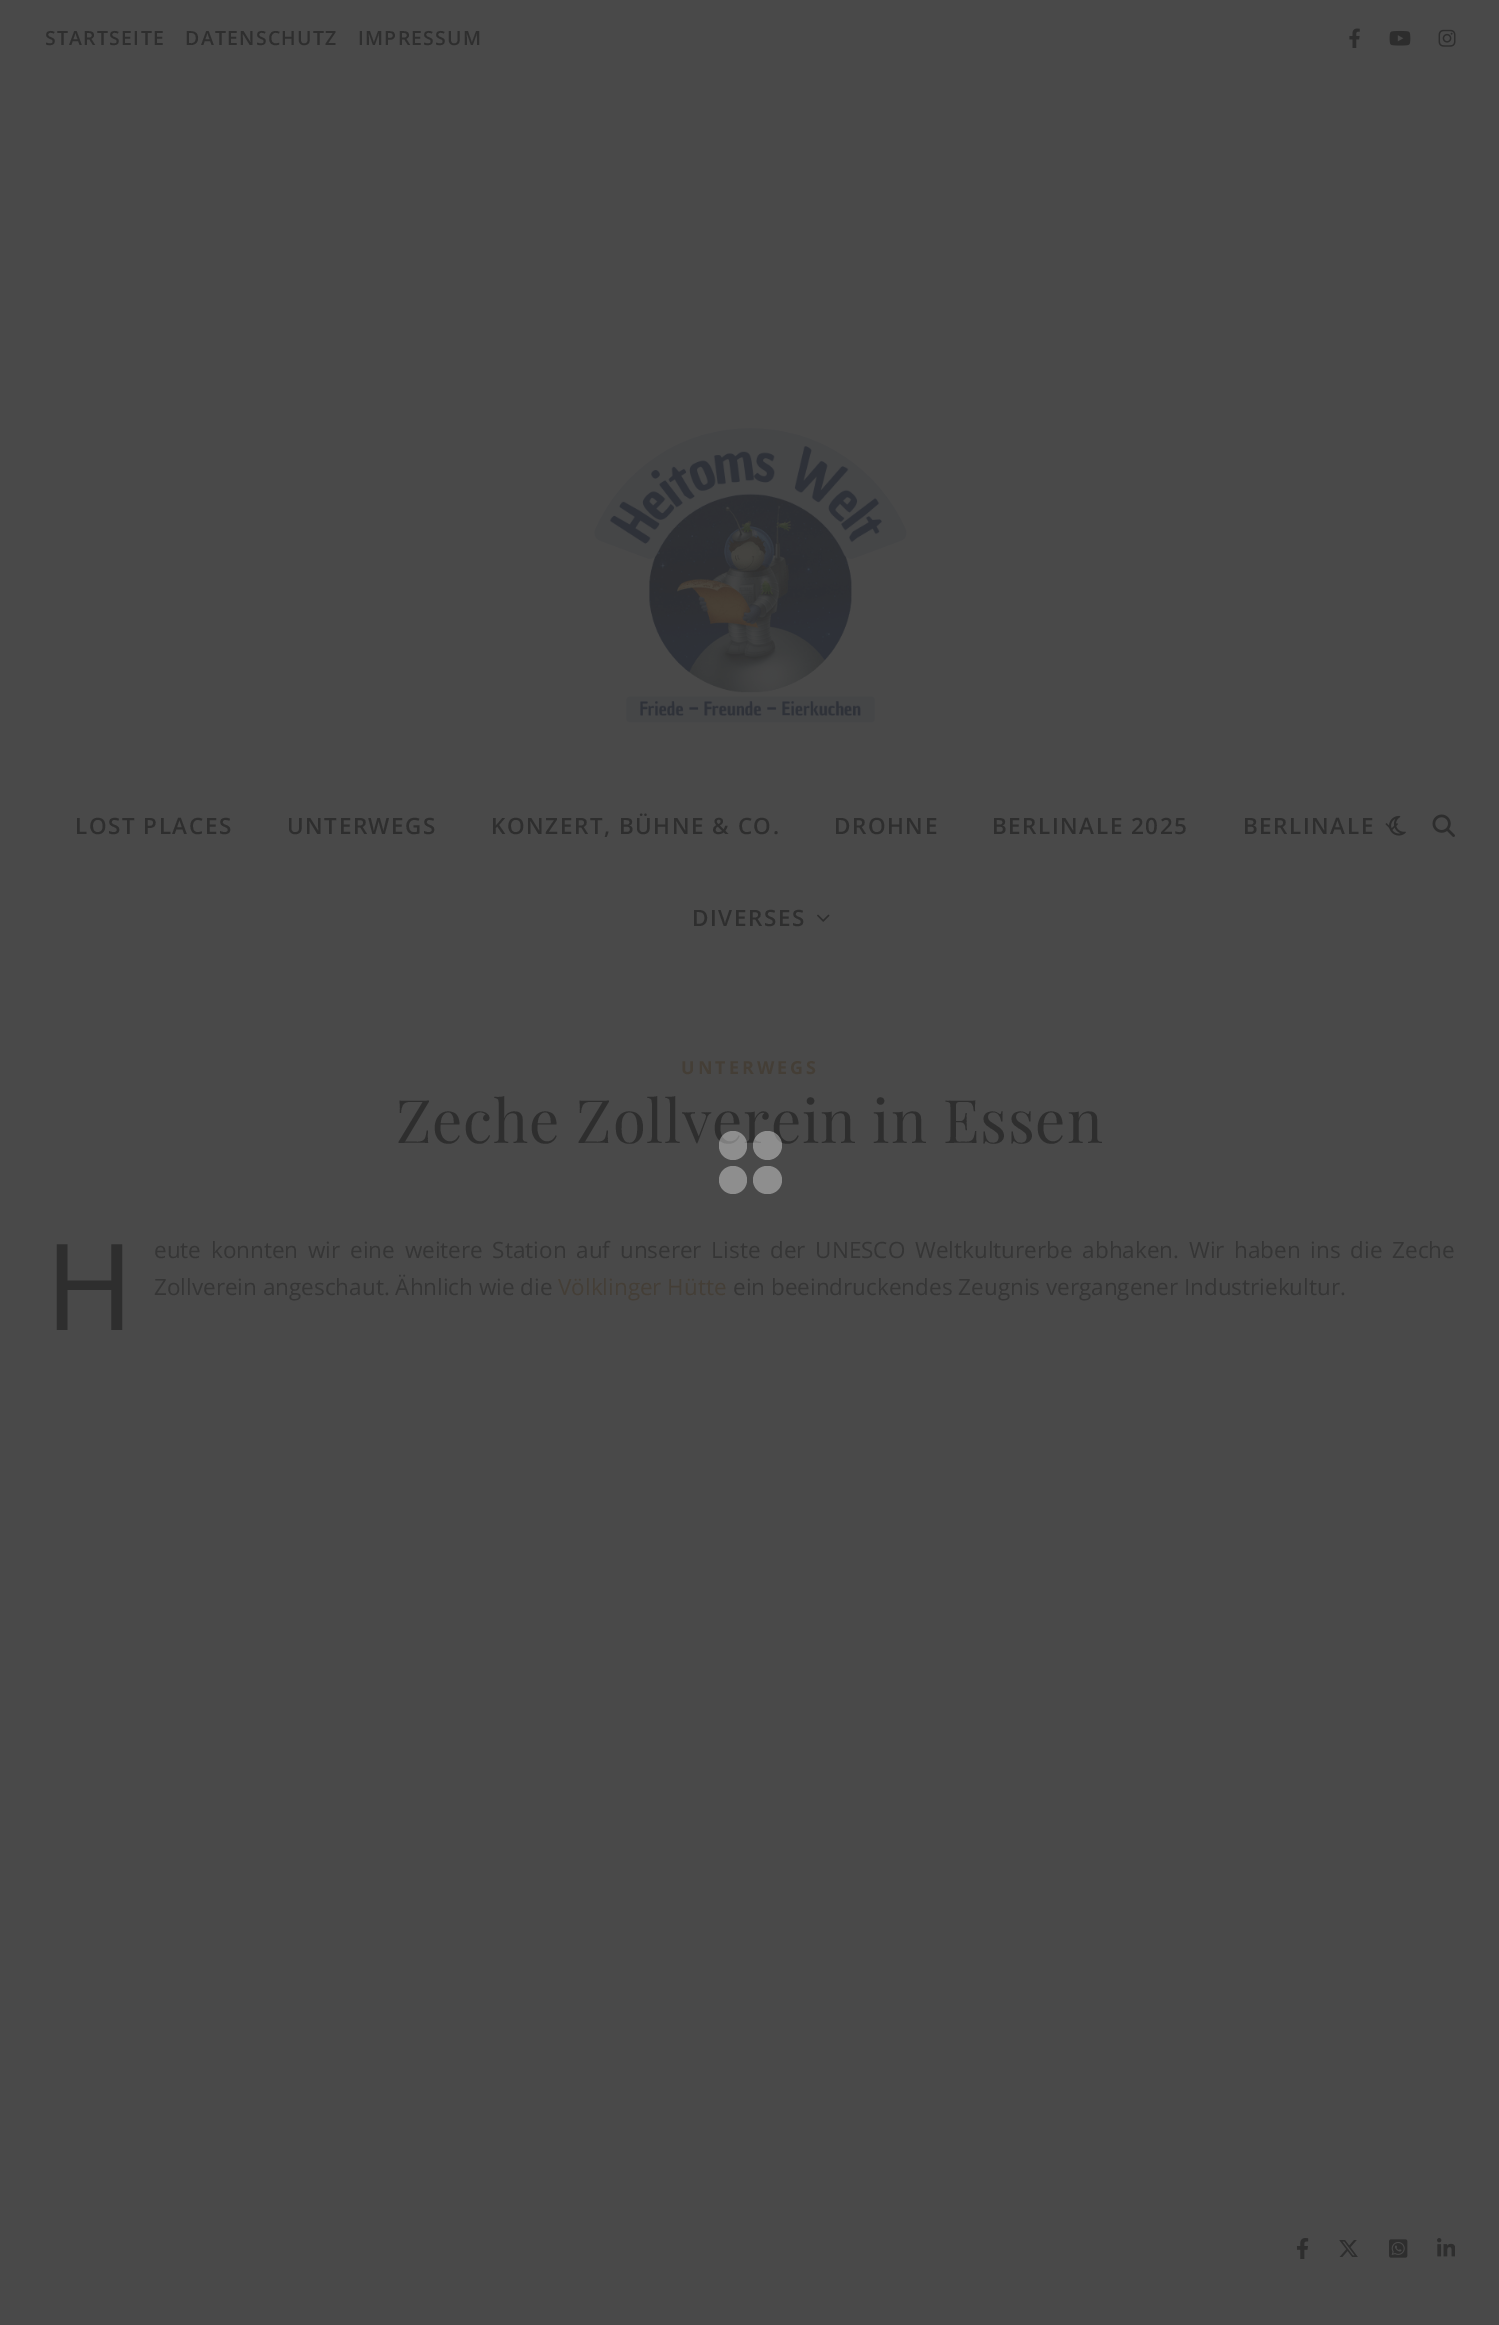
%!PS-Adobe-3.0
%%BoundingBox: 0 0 1499 2325
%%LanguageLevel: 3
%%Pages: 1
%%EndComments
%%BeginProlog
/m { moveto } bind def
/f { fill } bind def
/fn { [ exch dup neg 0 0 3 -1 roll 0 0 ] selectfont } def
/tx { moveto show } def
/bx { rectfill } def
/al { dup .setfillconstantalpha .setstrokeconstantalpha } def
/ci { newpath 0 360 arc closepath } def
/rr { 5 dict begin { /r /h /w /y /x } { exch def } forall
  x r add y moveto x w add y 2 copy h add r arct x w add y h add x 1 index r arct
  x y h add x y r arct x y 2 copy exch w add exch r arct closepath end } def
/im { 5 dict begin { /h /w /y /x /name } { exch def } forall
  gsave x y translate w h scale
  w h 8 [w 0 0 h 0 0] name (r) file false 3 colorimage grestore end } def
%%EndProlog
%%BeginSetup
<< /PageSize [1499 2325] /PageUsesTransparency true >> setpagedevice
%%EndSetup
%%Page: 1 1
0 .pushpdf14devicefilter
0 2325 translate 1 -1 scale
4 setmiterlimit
0.286 setgray
0 0 1499 2325 bx
/OpenSans-SemiBold 19.5 fn
0.18 setgray
45 45 m 1.25 0 (STARTSEITE) ashow
185 45 m 1.25 0 (DATENSCHUTZ) ashow
358 45 m 1.25 0 (IMPRESSUM) ashow
(image0.raw) 1349 28 11 20 im
(image1.raw) 1389 30 22 16 im
(image2.raw) 1438 29 18 18 im
(image3.raw) 594 428 313 295 im
/OpenSans-SemiBold 22.5 fn
75 834 m 1.5 0 (LOST PLACES) ashow
287 834 m 1.5 0 (UNTERWEGS) ashow
491 834 m 1.5 0 (KONZERT, BÜHNE & CO.) ashow
834 834 m 1.5 0 (DROHNE) ashow
992 834 m 1.5 0 (BERLINALE 2025) ashow
1243 834 m 1.5 0 (BERLINALE) ashow
(image4.raw) 1385 823 13 8 im
692 926 m 1.5 0 (DIVERSES) ashow
(image5.raw) 817 914 13 8 im
(image6.raw) 1389 815 17 21 im
(image7.raw) 1432 814 23 23 im
/OpenSans-Bold 18 fn
0.267 0.243 0.212 setrgbcolor
681 1074 m 3 0 (UNTERWEGS) ashow
/PlayfairDisplay-Regular 60 fn
0.18 setgray
396 1143 m 0.75 0 (Zeche Zollverein in Essen) ashow
/NotoSans-Regular 120 fn
(H) 45 1330 tx
/OpenSans-Regular 22.5 fn
0.208 setgray
154 1258 m 3.9 0 32 (eute konnten wir eine weitere Station auf unserer Liste der UNESCO Weltkulturerbe abhaken. Wir haben ins die Zeche) widthshow
(Zollverein angeschaut. Ähnlich wie die) 154 1295 tx
0.267 0.243 0.212 setrgbcolor
(Völklinger Hütte) 558 1295 tx
0.208 setgray
(ein beeindruckendes Zeugnis vergangener Industriekultur.) 733 1295 tx
(image8.raw) 1296 2238 13 21 im
(image9.raw) 1339 2240 19 17 im
(image10.raw) 1389 2239 19 19 im
(image11.raw) 1437 2238 18 19 im
0.38 al
1 setgray
719 1131 28 29 14 rr f
767.5 1145.5 14.5 ci f
733 1180 14 ci f
753 1166 29 28 14 rr f
.poppdf14devicefilter showpage
%%EOF
